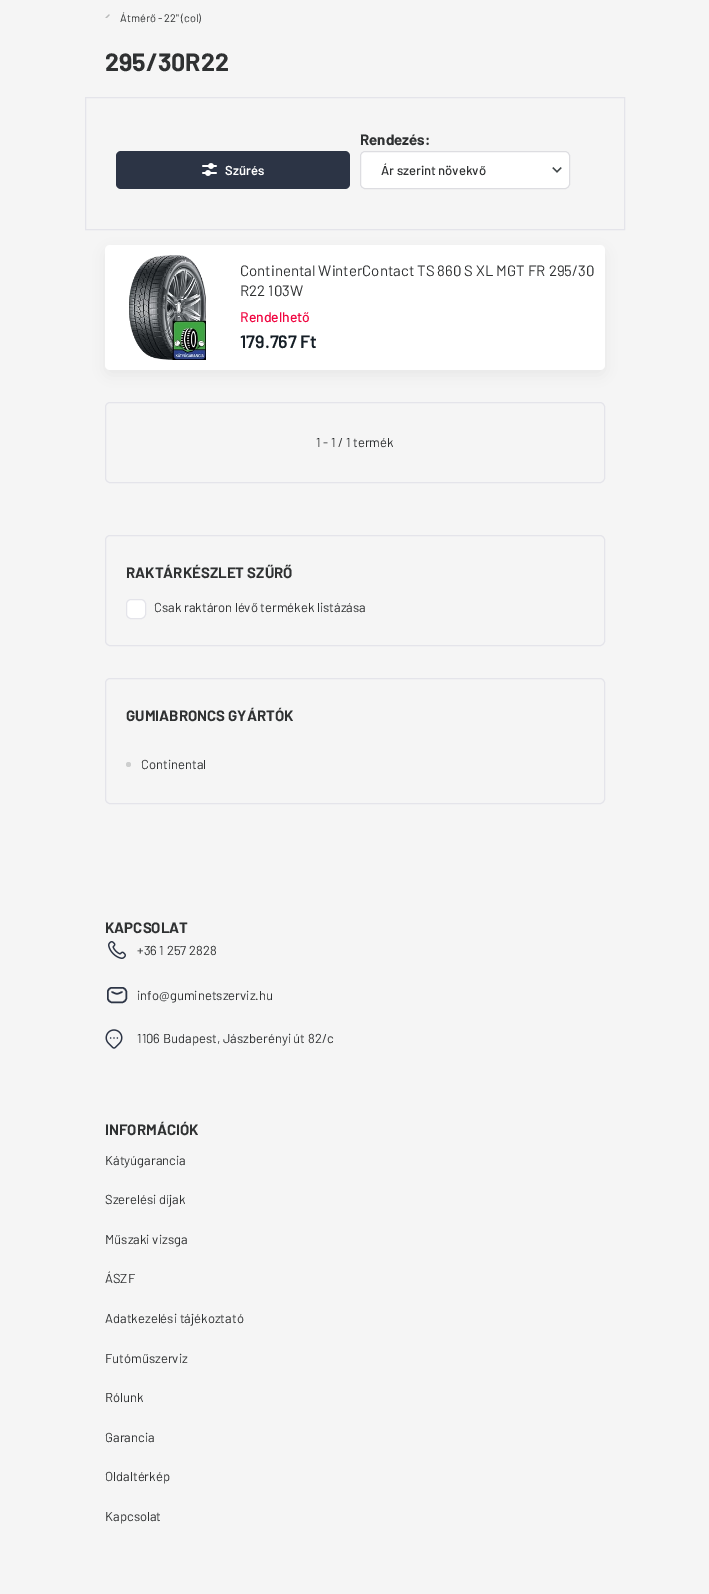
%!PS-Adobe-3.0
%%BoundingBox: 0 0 709 1594
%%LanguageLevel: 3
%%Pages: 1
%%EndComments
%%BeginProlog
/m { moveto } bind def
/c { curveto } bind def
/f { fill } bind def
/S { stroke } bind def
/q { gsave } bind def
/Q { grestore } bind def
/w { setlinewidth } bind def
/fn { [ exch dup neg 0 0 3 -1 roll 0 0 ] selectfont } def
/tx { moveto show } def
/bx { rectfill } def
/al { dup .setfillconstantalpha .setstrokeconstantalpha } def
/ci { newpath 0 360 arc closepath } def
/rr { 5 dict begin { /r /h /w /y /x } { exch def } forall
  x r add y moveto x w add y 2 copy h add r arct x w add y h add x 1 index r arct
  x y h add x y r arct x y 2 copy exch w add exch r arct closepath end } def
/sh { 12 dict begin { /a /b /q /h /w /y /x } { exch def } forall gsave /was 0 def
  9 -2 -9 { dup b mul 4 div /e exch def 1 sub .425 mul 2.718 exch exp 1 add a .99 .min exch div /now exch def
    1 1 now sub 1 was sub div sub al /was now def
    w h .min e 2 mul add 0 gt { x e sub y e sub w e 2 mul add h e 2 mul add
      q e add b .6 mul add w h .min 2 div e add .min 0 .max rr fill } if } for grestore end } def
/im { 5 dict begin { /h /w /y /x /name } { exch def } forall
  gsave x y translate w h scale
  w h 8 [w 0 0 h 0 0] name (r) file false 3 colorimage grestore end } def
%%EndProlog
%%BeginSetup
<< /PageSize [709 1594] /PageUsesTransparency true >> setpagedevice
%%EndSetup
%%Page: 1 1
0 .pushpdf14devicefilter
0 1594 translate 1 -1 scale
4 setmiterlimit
0.961 setgray
0 0 709 1594 bx
(image0.raw) 105 14 5 4 im
/Barlow-Regular 11 fn
0.184 0.192 0.196 setrgbcolor
(Átmérő - 22" \(col\)) 120 22 tx
/Barlow-Bold 25 fn
(295/30R22) 105 71 tx
0.894 0.894 0.918 setrgbcolor
85.5 97.5 539 132 rectstroke
0.173 0.204 0.271 setrgbcolor
116 151 234 38 5 rr f
(image1.raw) 202 163 15 13 im
/Barlow-SemiBold 13 fn
1 setgray
(Szűrés) 225 175 tx
/Barlow-Bold 15 fn
0.184 0.192 0.196 setrgbcolor
(Rendezés:) 360 145 tx
1 setgray
360 151 210 38 5 rr f
(image2.raw) 552 167 10 6 im
0.867 0.867 0.882 setrgbcolor
360.5 151.5 209 37 4.5 rr S
/Barlow-Medium 13 fn
0.184 0.192 0.196 setrgbcolor
(Ár szerint növekvő) 381 175 tx
0 setgray
105 250 500 125 5 7.5 0.05 sh
1 setgray
105 245 500 125 5 rr f
(image3.raw) 129 255 77 105 im
/Barlow-Regular 15 fn
0.184 0.192 0.196 setrgbcolor
(Continental WinterContact TS 860 S XL MGT FR 295/30) 240 276 tx
(R22 103W) 240 296 tx
/Barlow-Medium 14 fn
0.941 0.02 0.251 setrgbcolor
(Rendelhető) 240 322 tx
/Barlow-SemiBold 18 fn
0.082 0.118 0.149 setrgbcolor
(179.767 Ft) 240 348 tx
0.894 0.894 0.918 setrgbcolor
105.5 402.5 499 80 4.5 rr S
/Barlow-Regular 13 fn
0.184 0.192 0.196 setrgbcolor
(1 - 1 / 1 termék) 316 447 tx
0.894 0.894 0.918 setrgbcolor
105.5 535.5 499 110 4.5 rr S
/Barlow-Bold 15 fn
0.184 0.192 0.196 setrgbcolor
(RAKTÁRKÉSZLET SZŰRŐ) 126 578 tx
1 setgray
126.5 599.5 19 19 4.5 rr q f Q
0.894 0.894 0.918 setrgbcolor
S
/Barlow-Regular 13 fn
0.184 0.192 0.196 setrgbcolor
(Csak raktáron lévő termékek listázása) 154 612 tx
0.894 0.894 0.918 setrgbcolor
105.5 678.5 499 125 4.5 rr S
/Barlow-Bold 15 fn
0.184 0.192 0.196 setrgbcolor
(GUMIABRONCS GYÁRTÓK) 126 721 tx
0.804 0.808 0.808 setrgbcolor
128.5 764.5 2.5 ci f
/Barlow-Regular 13 fn
0.184 0.192 0.196 setrgbcolor
(Continental) 141 769 tx
/Barlow-Bold 15 fn
(KAPCSOLAT) 105 933 tx
(image4.raw) 108 941 18 18 im
/Barlow-Regular 13 fn
(+36 1 257 2828) 137 955 tx
0.173 0.204 0.271 setrgbcolor
1.5 w
107.75 987.75 18.5 14.5 4.25 rr S
1 setlinecap
1 setlinejoin
112 992 m 117.5 994.5 116.5 994.5 122 992 c S
0.184 0.192 0.196 setrgbcolor
(info@guminetszerviz.hu) 137 1000 tx
(image5.raw) 105 1029 18 20 im
(1106 Budapest, Jászberényi út 82/c) 137 1043 tx
/Barlow-Bold 15 fn
(INFORMÁCIÓK) 105 1135 tx
/Barlow-Regular 13 fn
(Kátyúgarancia) 105 1165 tx
(Szerelési díjak) 105 1204 tx
(Műszaki vizsga) 105 1244 tx
(ÁSZF) 105 1283 tx
(Adatkezelési tájékoztató) 105 1323 tx
(Futóműszerviz) 105 1363 tx
(Rólunk) 105 1402 tx
(Garancia) 105 1442 tx
(Oldaltérkép) 105 1481 tx
(Kapcsolat) 105 1521 tx
.poppdf14devicefilter showpage
%%EOF
